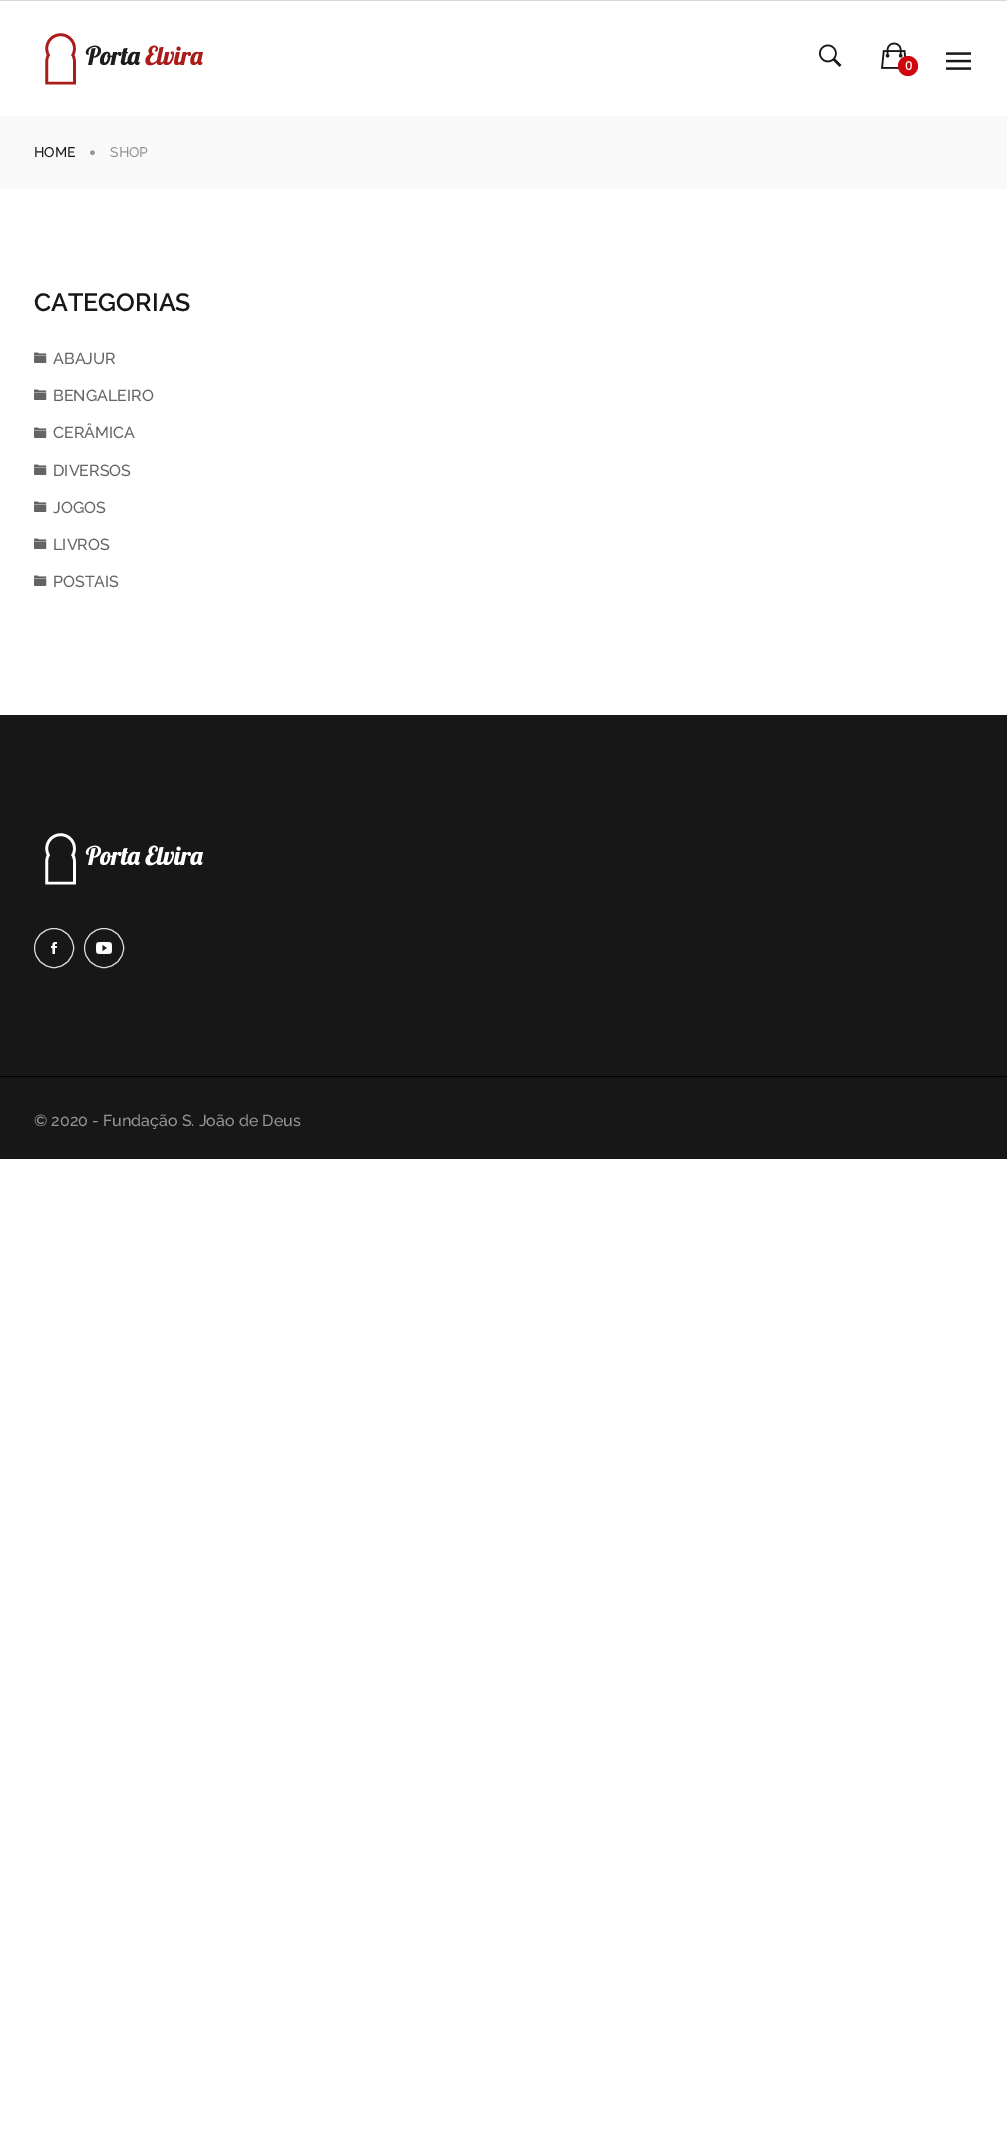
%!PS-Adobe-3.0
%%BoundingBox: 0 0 1007 2148
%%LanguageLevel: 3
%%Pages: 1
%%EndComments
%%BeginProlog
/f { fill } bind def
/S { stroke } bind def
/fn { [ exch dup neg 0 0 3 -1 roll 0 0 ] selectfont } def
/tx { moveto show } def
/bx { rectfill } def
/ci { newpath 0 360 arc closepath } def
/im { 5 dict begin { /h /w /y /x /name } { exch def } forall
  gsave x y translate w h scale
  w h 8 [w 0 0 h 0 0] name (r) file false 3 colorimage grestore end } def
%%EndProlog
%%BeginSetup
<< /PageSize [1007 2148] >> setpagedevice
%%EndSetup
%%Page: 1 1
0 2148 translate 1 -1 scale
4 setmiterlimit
1 setgray
0 0 1007 2148 bx
0.843 setgray
0 0 1007 1 bx
(image0.raw) 45 33 158 52 im
(image1.raw) 819 44 23 23 im
(image2.raw) 881 42 25 27 im
0.812 0.024 0.055 setrgbcolor
908 66 10 ci f
/Poppins-Medium 12 fn
1 setgray
(0) 905 70 tx
(image3.raw) 946 52 25 18 im
0.976 setgray
0 116 1007 73 bx
/Raleway-Medium 14 fn
0.09 setgray
(HOME) 34 157 tx
(image4.raw) 90 150 5 6 im
0.584 setgray
(SHOP) 110 157 tx
/Raleway-SemiBold 25 fn
0.09 setgray
(CATEGORIAS) 34 311 tx
(image5.raw) 34 352 13 11 im
/Raleway-Medium 16 fn
0.392 setgray
(ABAJUR) 53 364 tx
(image5.raw) 34 389 13 11 im
(BENGALEIRO) 53 401 tx
(image5.raw) 34 427 13 11 im
(CERÂMICA) 53 438 tx
(image5.raw) 34 464 13 11 im
(DIVERSOS) 53 476 tx
(image5.raw) 34 501 13 11 im
(JOGOS) 53 513 tx
(image5.raw) 34 538 13 11 im
(LIVROS) 53 550 tx
(image5.raw) 34 575 13 11 im
(POSTAIS) 53 587 tx
0.09 setgray
0 715 1007 444 bx
(image6.raw) 45 833 158 52 im
0.859 setgray
54 948 19.5 ci S
(image7.raw) 51 942 6 12 im
104 948 19.5 ci S
(image8.raw) 96 942 16 12 im
0 setgray
0 1076 1007 1 bx
0.584 setgray
(© 2020 - Fundação S. João de Deus) 34 1126 tx
showpage
%%EOF
